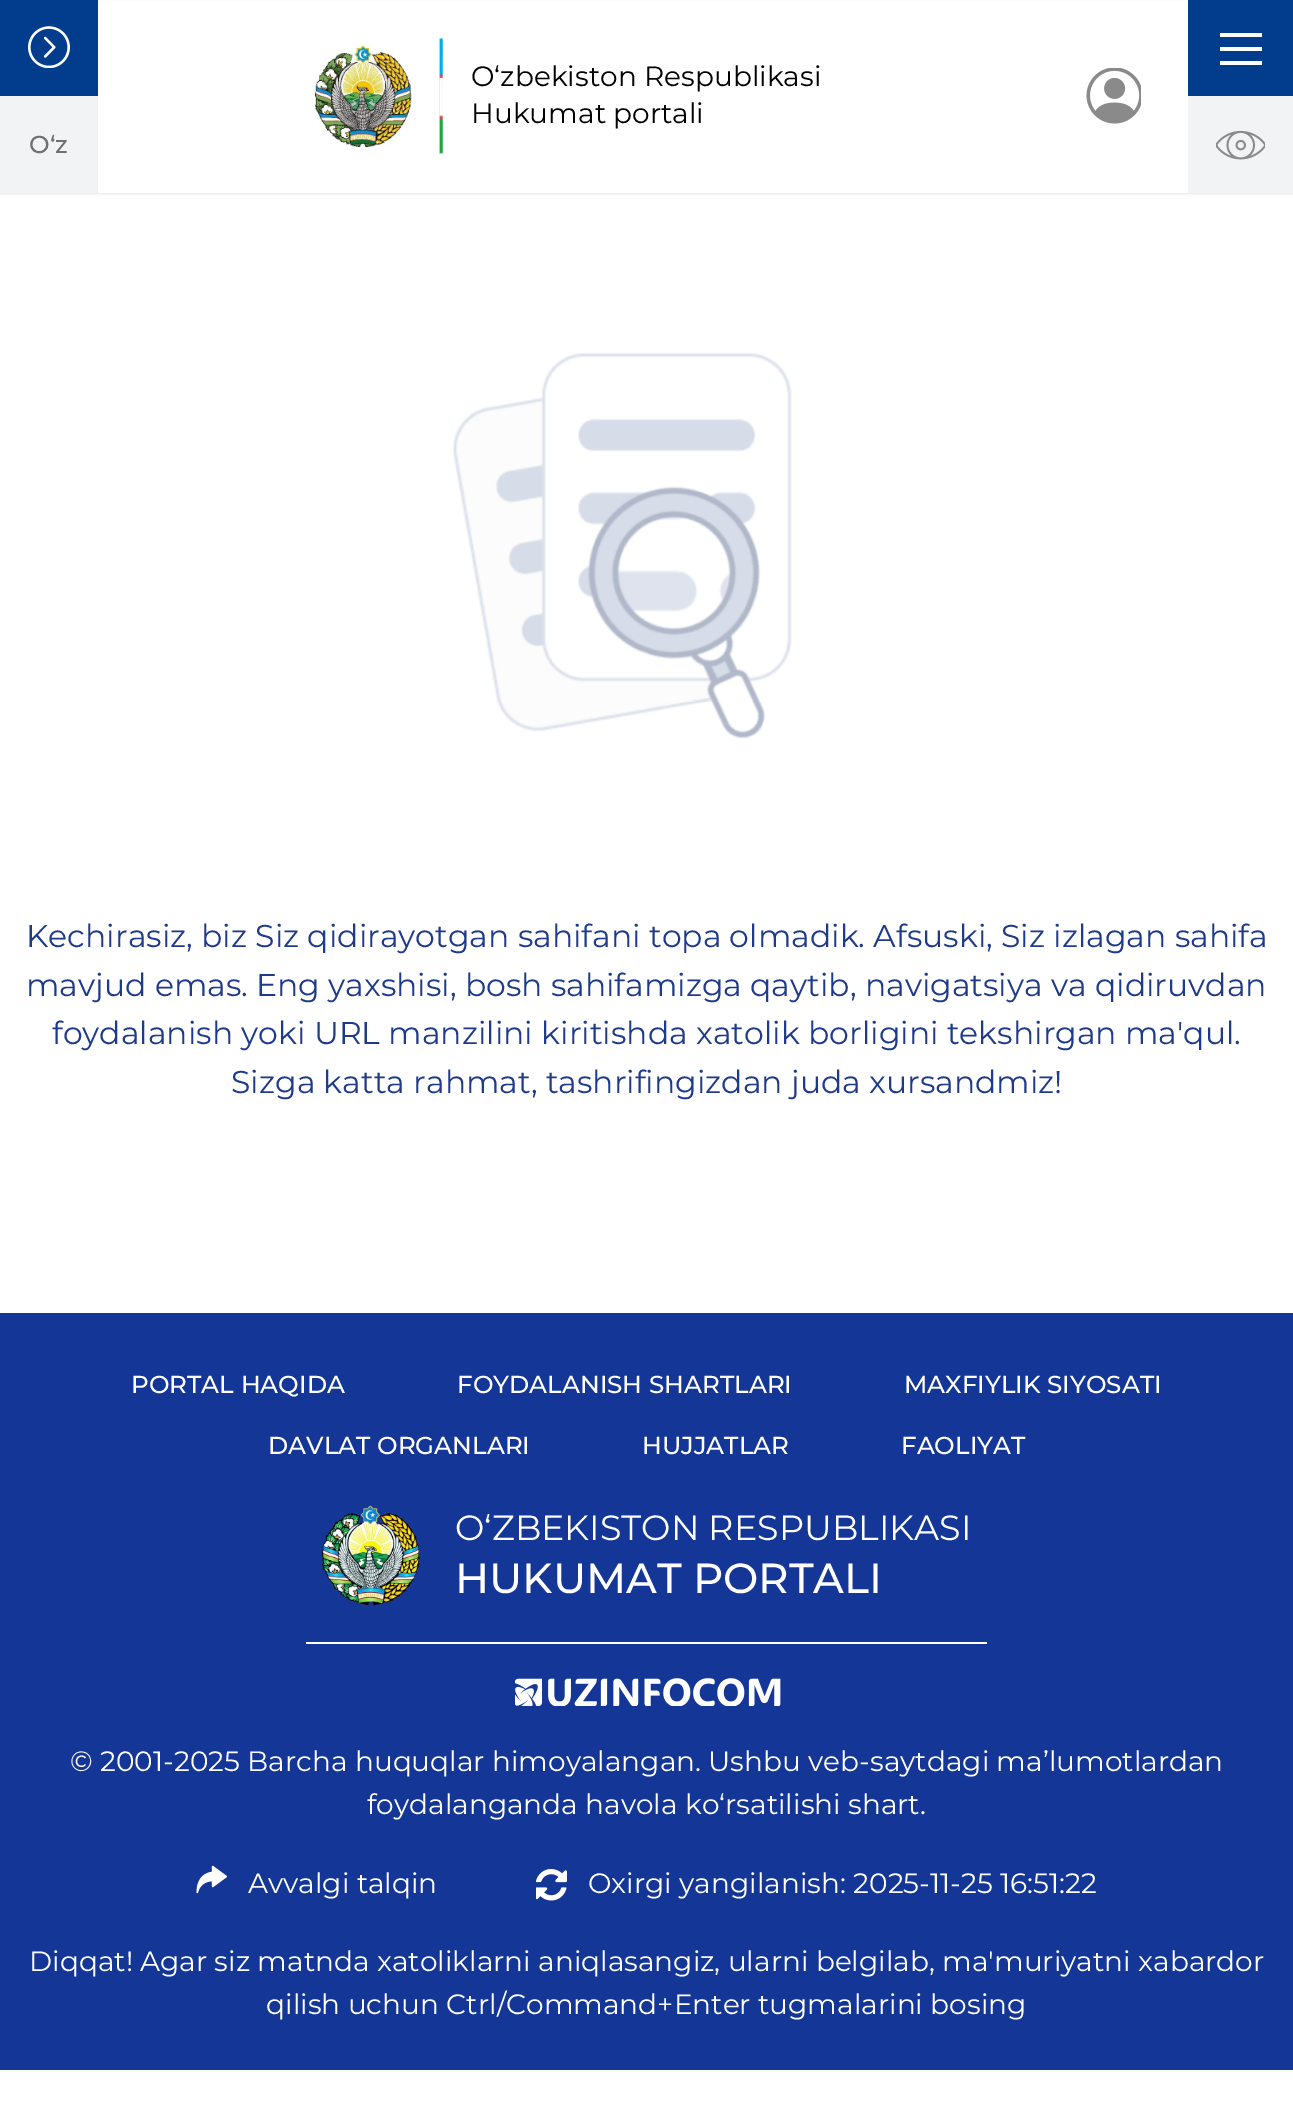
%!PS-Adobe-3.0
%%BoundingBox: 0 0 1293 2107
%%LanguageLevel: 3
%%Pages: 1
%%EndComments
%%BeginProlog
/fn { [ exch dup neg 0 0 3 -1 roll 0 0 ] selectfont } def
/tx { moveto show } def
/bx { rectfill } def
/al { dup .setfillconstantalpha .setstrokeconstantalpha } def
/rr { 5 dict begin { /r /h /w /y /x } { exch def } forall
  x r add y moveto x w add y 2 copy h add r arct x w add y h add x 1 index r arct
  x y h add x y r arct x y 2 copy exch w add exch r arct closepath end } def
/sh { 12 dict begin { /a /b /q /h /w /y /x } { exch def } forall gsave /was 0 def
  9 -2 -9 { dup b mul 4 div /e exch def 1 sub .425 mul 2.718 exch exp 1 add a .99 .min exch div /now exch def
    1 1 now sub 1 was sub div sub al /was now def
    w h .min e 2 mul add 0 gt { x e sub y e sub w e 2 mul add h e 2 mul add
      q e add b .6 mul add w h .min 2 div e add .min 0 .max rr fill } if } for grestore end } def
/im { 5 dict begin { /h /w /y /x /name } { exch def } forall
  gsave x y translate w h scale
  w h 8 [w 0 0 h 0 0] name (r) file false 3 colorimage grestore end } def
%%EndProlog
%%BeginSetup
<< /PageSize [1293 2107] /PageUsesTransparency true >> setpagedevice
%%EndSetup
%%Page: 1 1
0 .pushpdf14devicefilter
0 2107 translate 1 -1 scale
4 setmiterlimit
1 setgray
0 0 1293 2107 bx
0 setgray
0 2 1293 192 0 1 0.1 sh
1 setgray
98 1 1090 192 bx
(image0.raw) 315 45 97 102 im
(image1.raw) 439 38 4 116 im
/Montserrat-Regular 28 fn
0 setgray
(O‘zbekiston Respublikasi) 471 86 tx
(Hukumat portali) 471 123 tx
(image2.raw) 1086 68 55 56 im
0.004 0.239 0.549 setrgbcolor
1188 0 105 96 bx
1 setgray
1220 47 42 4 bx
1220 33 42 4 bx
1220 61 42 4 bx
0.945 0.953 0.961 setrgbcolor
1188 96 105 97 bx
(image3.raw) 1216 130 49 30 im
0.004 0.239 0.549 setrgbcolor
0 0 98 96 bx
(image4.raw) 28 26 42 42 im
0.945 0.953 0.961 setrgbcolor
0 96 98 97 bx
/Montserrat-Medium 24.5 fn
0.439 setgray
(O‘z) 29 153 tx
(image5.raw) 453 353 339 386 im
/Montserrat-Regular 31.5 fn
0.118 0.227 0.541 setrgbcolor
(Kechirasiz, biz Siz qidirayotgan sahifani topa olmadik. Afsuski, Siz izlagan sahifa) 26 947 tx
(mavjud emas. Eng yaxshisi, bosh sahifamizga qaytib, navigatsiya va qidiruvdan) 26 996 tx
(foydalanish yoki URL manzilini kiritishda xatolik borligini tekshirgan ma'qul.) 52 1044 tx
(Sizga katta rahmat, tashrifingizdan juda xursandmiz!) 231 1093 tx
0.078 0.216 0.592 setrgbcolor
0 1313 1293 757 bx
/Montserrat-Medium 24.5 fn
1 setgray
(PORTAL HAQIDA) 131 1393 tx
(FOYDALANISH SHARTLARI) 457 1393 tx
(MAXFIYLIK SIYOSATI) 904 1393 tx
(DAVLAT ORGANLARI) 268 1454 tx
(HUJJATLAR) 642 1454 tx
(FAOLIYAT) 901 1454 tx
(image6.raw) 322 1505 98 101 im
/Montserrat-Regular 35 fn
(O‘ZBEKISTON RESPUBLIKASI) 455 1540 tx
/Montserrat-Medium 42 fn
(HUKUMAT PORTALI) 455 1593 tx
306 1642 681 2 bx
(image7.raw) 515 1678 266 28 im
/Montserrat-Regular 28 fn
(© 2001-2025 Barcha huquqlar himoyalangan. Ushbu veb-saytdagi ma’lumotlardan) 70 1771 tx
(foydalanganda havola ko‘rsatilishi shart.) 367 1814 tx
(image8.raw) 196 1865 31 29 im
(Avvalgi talqin) 248 1893 tx
(image9.raw) 536 1869 31 32 im
(Oxirgi yangilanish: 2025-11-25 16:51:22) 588 1893 tx
(Diqqat! Agar siz matnda xatoliklarni aniqlasangiz, ularni belgilab, ma'muriyatni xabardor) 29 1971 tx
(qilish uchun Ctrl/Command+Enter tugmalarini bosing) 266 2014 tx
.poppdf14devicefilter showpage
%%EOF
